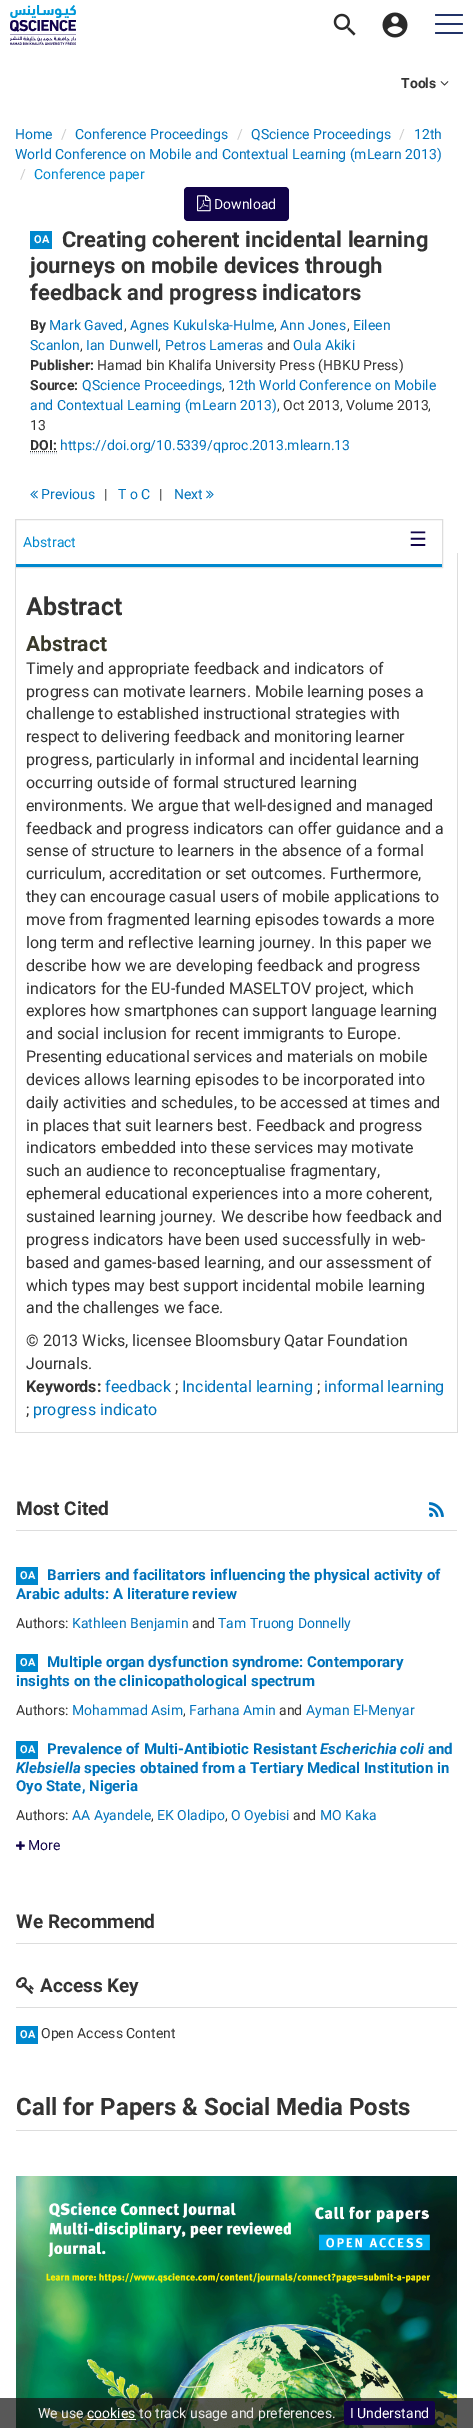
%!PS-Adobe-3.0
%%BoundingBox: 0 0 473 2428
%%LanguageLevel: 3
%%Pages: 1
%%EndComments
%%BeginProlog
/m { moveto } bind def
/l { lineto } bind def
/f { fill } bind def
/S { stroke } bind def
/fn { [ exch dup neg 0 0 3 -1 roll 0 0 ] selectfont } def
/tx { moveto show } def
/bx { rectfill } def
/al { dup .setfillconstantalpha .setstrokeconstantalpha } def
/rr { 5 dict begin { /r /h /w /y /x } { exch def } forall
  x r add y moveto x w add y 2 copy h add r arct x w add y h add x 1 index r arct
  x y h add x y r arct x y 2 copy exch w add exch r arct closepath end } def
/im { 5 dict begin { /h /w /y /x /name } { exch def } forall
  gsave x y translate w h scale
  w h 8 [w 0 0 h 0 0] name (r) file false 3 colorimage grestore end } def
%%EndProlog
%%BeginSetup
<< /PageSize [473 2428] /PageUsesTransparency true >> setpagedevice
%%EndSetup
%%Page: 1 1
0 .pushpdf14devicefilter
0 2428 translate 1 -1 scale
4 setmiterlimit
1 setgray
0 0 473 2428 bx
(image0.raw) 10 5 66 40 im
(image1.raw) 333 13 23 23 im
(image2.raw) 382 12 26 26 im
0.129 0.2 0.408 setrgbcolor
435 14 28 2 1 rr f
435 23 28 2 1 rr f
435 32 28 2 1 rr f
/Roboto-Bold 14 fn
0.2 setgray
(Tools) 401 88 tx
(image3.raw) 440 81 9 5 im
/Roboto-Regular 14 fn
0 0.451 0.733 setrgbcolor
(Home) 15 139 tx
0.8 setgray
(/) 61 139 tx
0 0.451 0.733 setrgbcolor
(Conference Proceedings) 75 139 tx
0.8 setgray
(/) 237 139 tx
0 0.451 0.733 setrgbcolor
(QScience Proceedings) 251 139 tx
0.8 setgray
(/) 399 139 tx
0 0.451 0.733 setrgbcolor
(12th) 414 139 tx
(World Conference on Mobile and Contextual Learning \(mLearn 2013\)) 15 159 tx
0.8 setgray
(/) 20 179 tx
0 0.533 0.808 setrgbcolor
(Conference paper) 34 179 tx
0.067 0.012 0.286 setrgbcolor
184 187 105 34 4 rr f
(image4.raw) 197 195 14 17 im
1 setgray
(Download) 214 209 tx
0 0.533 0.808 setrgbcolor
30 231 22 18 bx
/Roboto-Bold 11 fn
1 setgray
(OA) 34 243 tx
/Roboto-Bold 22 fn
0.2 setgray
(Creating coherent incidental learning) 62 247 tx
(journeys on mobile devices through) 30 273 tx
(feedback and progress indicators) 30 300 tx
/Roboto-Bold 14 fn
(By) 30 330 tx
/Roboto-Regular 14 fn
0 0.451 0.733 setrgbcolor
(Mark Gaved) 49 330 tx
0.2 setgray
(,) 124 330 tx
0 0.451 0.733 setrgbcolor
(Agnes Kukulska-Hulme) 130 330 tx
0.2 setgray
(,) 274 330 tx
0 0.451 0.733 setrgbcolor
(Ann Jones) 280 330 tx
0.2 setgray
(,) 347 330 tx
0 0.451 0.733 setrgbcolor
(Eileen) 353 330 tx
(Scanlon) 30 350 tx
0.2 setgray
(,) 80 350 tx
0 0.451 0.733 setrgbcolor
(Ian Dunwell) 86 350 tx
0.2 setgray
(,) 158 350 tx
0 0.451 0.733 setrgbcolor
(Petros Lameras) 165 350 tx
0.2 setgray
(and) 267 350 tx
0 0.451 0.733 setrgbcolor
(Oula Akiki) 293 350 tx
/Roboto-Bold 14 fn
0.2 setgray
(Publisher:) 30 370 tx
/Roboto-Regular 14 fn
(Hamad bin Khalifa University Press \(HBKU Press\)) 97 370 tx
/Roboto-Bold 14 fn
(Source:) 30 390 tx
/Roboto-Regular 14 fn
0 0.451 0.733 setrgbcolor
(QScience Proceedings) 82 390 tx
0.2 setgray
(,) 222 390 tx
0 0.451 0.733 setrgbcolor
(12th World Conference on Mobile) 228 390 tx
(and Contextual Learning \(mLearn 2013\)) 30 410 tx
0.2 setgray
(, Oct 2013, Volume 2013,) 277 410 tx
(13) 30 430 tx
/Roboto-Bold 14 fn
(DOI:) 30 450 tx
0.835 0.875 0.925 setrgbcolor
[1 1] 0 setdash
30 453.5 m 57 453.5 l S
0.2 setgray
30 451.5 m 57 451.5 l S
/Roboto-Regular 14 fn
0 0.451 0.733 setrgbcolor
(https://doi.org/10.5339/qproc.2013.mlearn.13) 60 450 tx
(image5.raw) 30 490 8 9 im
(Previous) 41 499 tx
0.2 setgray
(|) 104 499 tx
0 0.451 0.733 setrgbcolor
(T o C) 118 499 tx
0.2 setgray
(|) 159 499 tx
0 0.451 0.733 setrgbcolor
(Next) 174 499 tx
(image6.raw) 206 490 8 9 im
0.867 setgray
[] 0 setdash
15.5 519.5 427 48 rectstroke
0 0.533 0.808 setrgbcolor
16 564 426 3 bx
(Abstract) 23 547 tx
/DejaVuSans-Regular 20 fn
0.067 0.012 0.286 setrgbcolor
(☰) 409 546 tx
0.867 setgray
457 553 1 880 bx
15 1432 443 1 bx
15 568 1 865 bx
/Roboto-Bold 25 fn
0.2 setgray
(Abstract) 26 615 tx
/Roboto-Bold 21 fn
0.224 0.224 0.165 setrgbcolor
(Abstract) 26 651 tx
/Roboto-Regular 16 fn
0.2 setgray
(Timely and appropriate feedback and indicators of) 26 674 tx
(progress can motivate learners. Mobile learning poses a) 26 697 tx
(challenge to established instructional strategies with) 26 719 tx
(respect to delivering feedback and monitoring learner) 26 742 tx
(progress, particularly in informal and incidental learning) 26 765 tx
(occurring outside of formal structured learning) 26 788 tx
(environments. We argue that well-designed and managed) 26 811 tx
(feedback and progress indicators can offer guidance and a) 26 834 tx
(sense of structure to learners in the absence of a formal) 26 856 tx
(curriculum, accreditation or set outcomes. Furthermore,) 26 879 tx
(they can encourage casual users of mobile applications to) 26 902 tx
(move from fragmented learning episodes towards a more) 26 925 tx
(long term and reflective learning journey. In this paper we) 26 948 tx
(describe how we are developing feedback and progress) 26 971 tx
(indicators for the EU-funded MASELTOV project, which) 26 994 tx
(explores how smartphones can support language learning) 26 1016 tx
(and social inclusion for recent immigrants to Europe.) 26 1039 tx
(Presenting educational services and materials on mobile) 26 1062 tx
(devices allows learning episodes to be incorporated into) 26 1085 tx
(daily activities and schedules, to be accessed at times and) 26 1108 tx
(in places that suit learners best. Feedback and progress) 26 1131 tx
(indicators embedded into these services may motivate) 26 1153 tx
(such an audience to reconceptualise fragmentary,) 26 1176 tx
(ephemeral educational experiences into a more coherent,) 26 1199 tx
(sustained learning journey. We describe how feedback and) 26 1222 tx
(progress indicators have been used successfully in web-) 26 1245 tx
(based and games-based learning, and our assessment of) 26 1268 tx
(which types may best support incidental mobile learning) 26 1291 tx
(and the challenges we face.) 26 1313 tx
(© 2013 Wicks, licensee Bloomsbury Qatar Foundation) 26 1346 tx
(Journals.) 26 1369 tx
/Roboto-Bold 16 fn
(Keywords:) 26 1392 tx
/Roboto-Regular 16 fn
0 0.451 0.733 setrgbcolor
(feedback) 105 1392 tx
0.2 setgray
(;) 175 1392 tx
0 0.451 0.733 setrgbcolor
(Incidental learning) 182 1392 tx
0.2 setgray
(;) 317 1392 tx
0 0.451 0.733 setrgbcolor
(informal learning) 324 1392 tx
0.2 setgray
(;) 26 1415 tx
0 0.451 0.733 setrgbcolor
(progress indicato) 33 1415 tx
0.867 setgray
16 1530 441 1 bx
/Roboto-Bold 19 fn
0.2 setgray
(Most Cited) 16 1515 tx
(image7.raw) 429 1502 15 15 im
0 0.533 0.808 setrgbcolor
16 1567 22 18 bx
/Roboto-Bold 11 fn
1 setgray
(OA) 20 1579 tx
/Roboto-Bold 15 fn
0 0.451 0.733 setrgbcolor
(Barriers and facilitators influencing the physical activity of) 47 1580 tx
(Arabic adults: A literature review) 16 1599 tx
/Roboto-Regular 14 fn
0.2 setgray
(Authors:) 16 1628 tx
0 0.451 0.733 setrgbcolor
(Kathleen Benjamin) 72 1628 tx
0.2 setgray
(and) 192 1628 tx
0 0.451 0.733 setrgbcolor
(Tam Truong Donnelly) 218 1628 tx
0 0.533 0.808 setrgbcolor
16 1654 22 18 bx
/Roboto-Bold 11 fn
1 setgray
(OA) 20 1666 tx
/Roboto-Bold 15 fn
0 0.451 0.733 setrgbcolor
(Multiple organ dysfunction syndrome: Contemporary) 47 1667 tx
(insights on the clinicopathological spectrum) 16 1686 tx
/Roboto-Regular 14 fn
0.2 setgray
(Authors:) 16 1715 tx
0 0.451 0.733 setrgbcolor
(Mohammad Asim) 72 1715 tx
0.2 setgray
(,) 183 1715 tx
0 0.451 0.733 setrgbcolor
(Farhana Amin) 189 1715 tx
0.2 setgray
(and) 279 1715 tx
0 0.451 0.733 setrgbcolor
(Ayman El-Menyar) 306 1715 tx
0 0.533 0.808 setrgbcolor
16 1741 22 18 bx
/Roboto-Bold 11 fn
1 setgray
(OA) 20 1753 tx
/Roboto-Bold 15 fn
0 0.451 0.733 setrgbcolor
(Prevalence of Multi-Antibiotic Resistant) 47 1754 tx
/Roboto-BoldItalic 15 fn
(Escherichia coli) 320 1754 tx
/Roboto-Bold 15 fn
(and) 428 1754 tx
/Roboto-BoldItalic 15 fn
(Klebsiella) 16 1773 tx
/Roboto-Bold 15 fn
(species obtained from a Tertiary Medical Institution in) 84 1773 tx
(Oyo State, Nigeria) 16 1791 tx
/Roboto-Regular 14 fn
0.2 setgray
(Authors:) 16 1820 tx
0 0.451 0.733 setrgbcolor
(AA Ayandele) 72 1820 tx
0.2 setgray
(,) 151 1820 tx
0 0.451 0.733 setrgbcolor
(EK Oladipo) 157 1820 tx
0.2 setgray
(,) 225 1820 tx
0 0.451 0.733 setrgbcolor
(O Oyebisi) 231 1820 tx
0.2 setgray
(and) 293 1820 tx
0 0.451 0.733 setrgbcolor
(MO Kaka) 320 1820 tx
(image8.raw) 16 1841 9 9 im
0.067 0.012 0.286 setrgbcolor
(More) 28 1850 tx
0.867 setgray
16 1943 441 1 bx
/Roboto-Bold 19 fn
0.2 setgray
(We Recommend) 16 1928 tx
0.867 setgray
16 2007 441 1 bx
(image9.raw) 16 1977 18 17 im
0.2 setgray
(Access Key) 40 1992 tx
0 0.533 0.808 setrgbcolor
16 2026 22 18 bx
/Roboto-Bold 11 fn
1 setgray
(OA) 20 2038 tx
/Roboto-Regular 14 fn
0.2 setgray
(Open Access Content) 41 2038 tx
0.867 setgray
16 2130 441 1 bx
/Roboto-Bold 24 fn
0.2 setgray
(Call for Papers & Social Media Posts) 16 2115 tx
(image10.raw) 16 2176 441 252 im
0.7 al
0.067 setgray
0 2398 473 30 bx
/Roboto-Regular 14 fn
1 al
0.933 setgray
(We use) 38 2418 tx
1 setgray
(cookies) 87 2418 tx
87 2419 49 1 bx
0.933 setgray
(to track usage and preferences.) 139 2418 tx
0.067 0.012 0.286 setrgbcolor
344 2401 91 24 3 rr f
1 setgray
(I Understand) 350 2418 tx
.poppdf14devicefilter showpage
%%EOF
